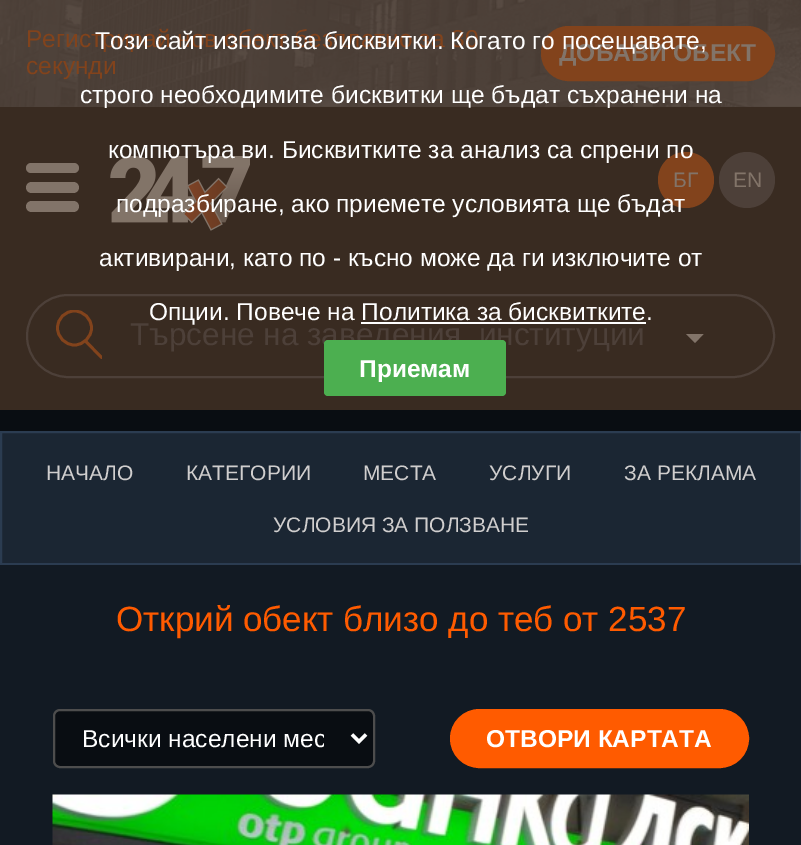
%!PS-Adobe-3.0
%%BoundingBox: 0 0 801 845
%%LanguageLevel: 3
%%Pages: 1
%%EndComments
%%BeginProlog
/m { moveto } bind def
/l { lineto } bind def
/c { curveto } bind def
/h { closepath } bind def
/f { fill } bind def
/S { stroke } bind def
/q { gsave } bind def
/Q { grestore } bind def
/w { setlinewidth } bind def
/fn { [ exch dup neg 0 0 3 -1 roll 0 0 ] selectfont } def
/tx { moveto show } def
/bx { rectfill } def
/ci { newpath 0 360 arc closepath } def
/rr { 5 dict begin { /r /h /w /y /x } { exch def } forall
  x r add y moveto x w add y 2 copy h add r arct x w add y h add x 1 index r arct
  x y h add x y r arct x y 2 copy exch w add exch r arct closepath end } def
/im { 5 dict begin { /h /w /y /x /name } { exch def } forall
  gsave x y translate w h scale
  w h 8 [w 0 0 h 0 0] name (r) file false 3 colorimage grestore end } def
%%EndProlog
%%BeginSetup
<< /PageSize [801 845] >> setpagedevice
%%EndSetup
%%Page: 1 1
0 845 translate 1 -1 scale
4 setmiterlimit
0.035 0.051 0.071 setrgbcolor
0 0 801 845 bx
0.224 0.169 0.129 setrgbcolor
0 106 801 304 bx
(image0.raw) 0 0 801 107 im
/LiberationSans-Regular 24.5 fn
0.51 0.263 0.11 setrgbcolor
(Регистрирай нов обект безплатно за 30) 26 47 tx
(секунди) 26 74 tx
542 27 232 53 26.5 rr q f Q
2 w
S
/LiberationSans-Bold 24.5 fn
0.51 0.455 0.412 setrgbcolor
(ДОБАВИ ОБЕКТ) 559 61 tx
0.51 0.263 0.11 setrgbcolor
686 180 28 ci f
/LiberationSans-Regular 21 fn
0.51 0.455 0.412 setrgbcolor
(БГ) 673 187 tx
0.302 0.251 0.224 setrgbcolor
747 180 28 ci f
0.51 0.455 0.412 setrgbcolor
(EN) 733 187 tx
26 163 53 10 5 rr f
26 182 53 11 5.5 rr f
26 201 53 11 5.5 rr f
(image1.raw) 110 156 140 75 im
0.302 0.251 0.224 setrgbcolor
27 295 747 82 41 rr S
q
56 310 46 49 rectclip
0.51 0.263 0.11 setrgbcolor
2.8 w
1 setlinecap
101.5 357.5 m 85.5 341 l S
0 setlinecap
74.5 345 m 65 345 57.5 337 57.5 328 c 57.5 318.5 65 311 74.5 311 c 83.5 311 91.5 318.5 91.5 328 c 91.5 337 83.5 345 74.5 345 c h S
Q
/LiberationSans-Regular 31.5 fn
(Търсене на заведения, институции) 130 345 tx
0.51 0.455 0.412 setrgbcolor
686 334 m 703.5 334 l 695 343 l h f
/LiberationSans-Regular 24.5 fn
1 setgray
(Този сайт използва бисквитки. Когато го посещавате,) 95 49 tx
(строго необходимите бисквитки ще бъдат съхранени на) 80 103 tx
(компютъра ви. Бисквитките за анализ са спрени по) 108 158 tx
(подразбиране, ако приемете условията ще бъдат) 116 212 tx
(активирани, като по - късно може да ги изключите от) 99 266 tx
(Опции. Повече на Политика за бисквитките.) 149 320 tx
361 322 285 2 bx
0.298 0.686 0.314 setrgbcolor
324 340 182 56 4 rr f
/LiberationSans-Bold 24.5 fn
1 setgray
(Приемам) 359 377 tx
0.106 0.149 0.2 setrgbcolor
1 432 m 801 432 l 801 564 l 1 564 l h q f Q
0.169 0.235 0.318 setrgbcolor
S
/LiberationSans-Regular 21 fn
0.816 0.808 0.808 setrgbcolor
(НАЧАЛО) 46 480 tx
(КАТЕГОРИИ) 186 480 tx
(МЕСТА) 363 480 tx
(УСЛУГИ) 489 480 tx
(ЗА РЕКЛАМА) 624 480 tx
(УСЛОВИЯ ЗА ПОЛЗВАНЕ) 273 532 tx
0.071 0.102 0.137 setrgbcolor
0 565 801 280 bx
/LiberationSans-Regular 35 fn
1 0.357 0 setrgbcolor
(Открий обект близо до теб от 2537) 116 631 tx
0.035 0.051 0.071 setrgbcolor
54 710 320 57 6 rr q f Q
0.302 setgray
S
1 setgray
3.5 w
352 734.5 m 359 741.5 l 366 734.5 l S
q
82 723 242 31 rectclip
/LiberationSans-Regular 24.5 fn
(Всички населени мес) 82 747 tx
Q
1 0.357 0 setrgbcolor
451 710 297 57 28.5 rr q f Q
2 w
S
/LiberationSans-Bold 24.5 fn
1 setgray
(ОТВОРИ КАРТАТА) 486 747 tx
(image2.raw) 52 794 697 51 im
showpage
%%EOF
